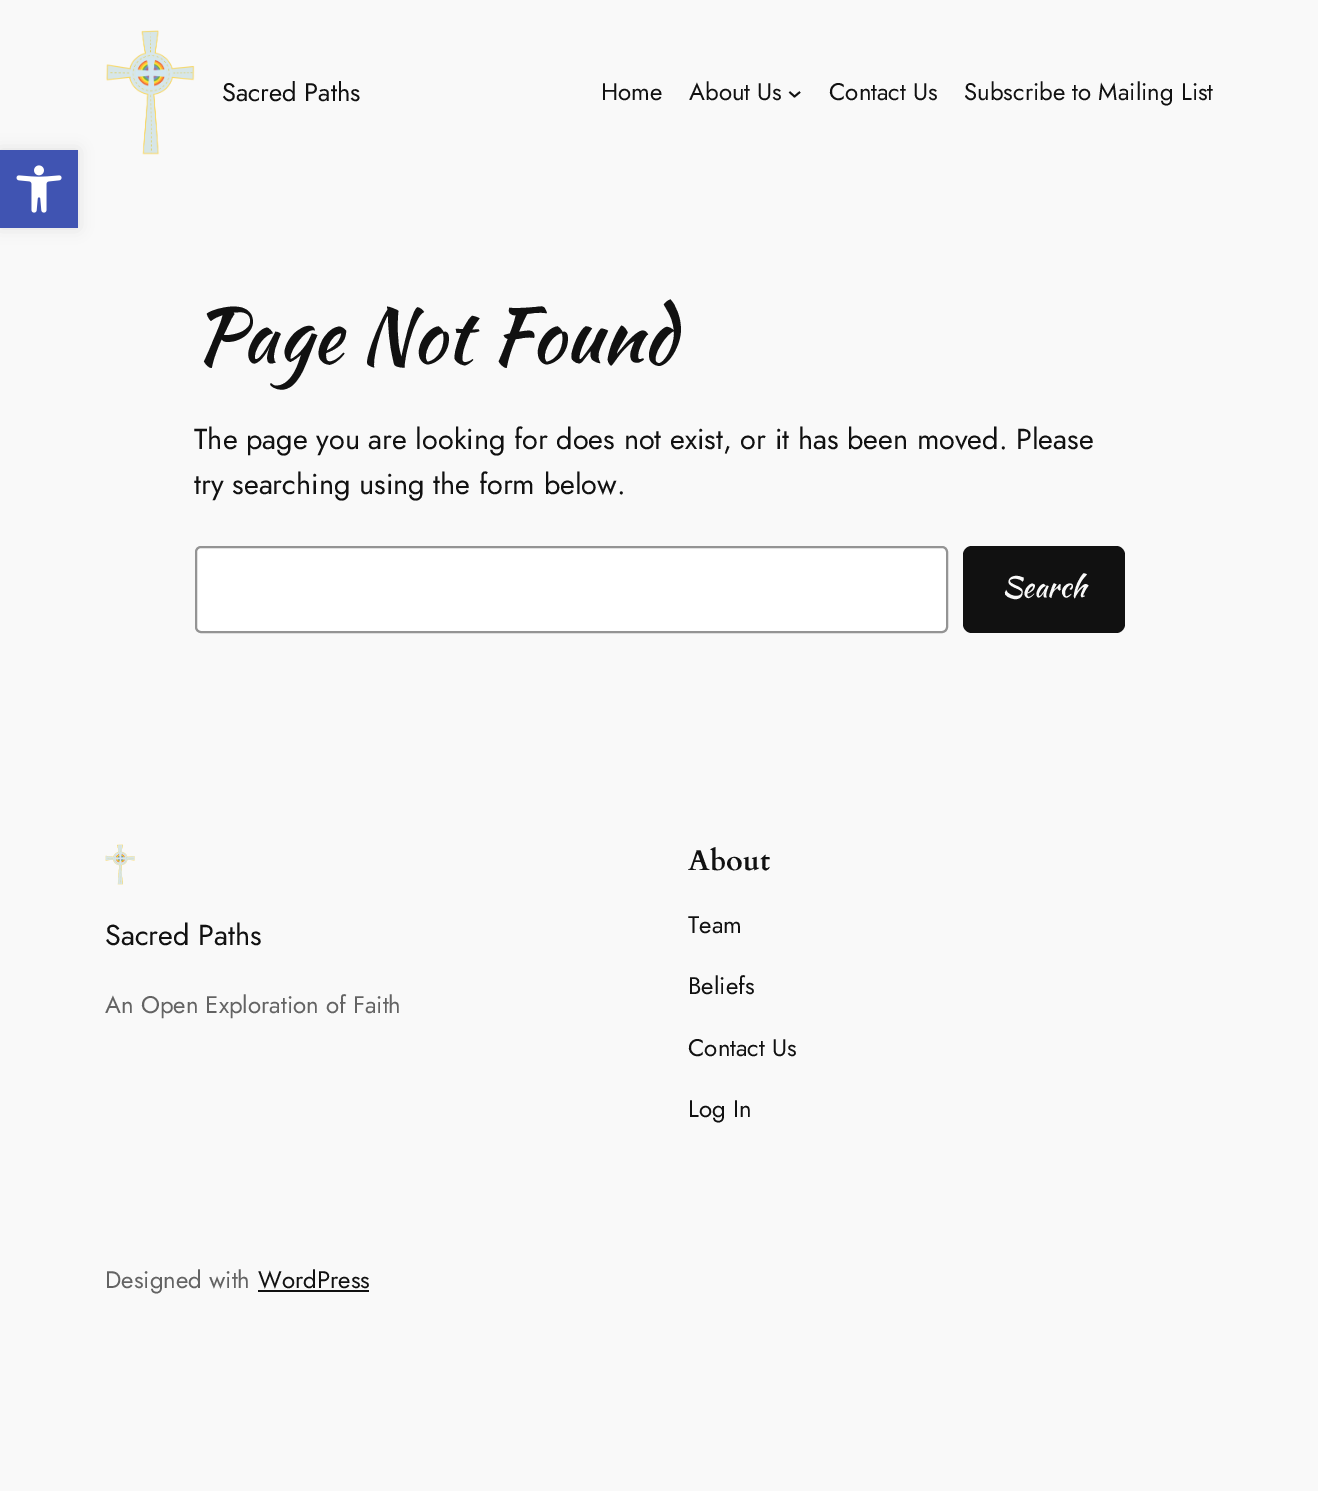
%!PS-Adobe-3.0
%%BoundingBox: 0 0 1318 1491
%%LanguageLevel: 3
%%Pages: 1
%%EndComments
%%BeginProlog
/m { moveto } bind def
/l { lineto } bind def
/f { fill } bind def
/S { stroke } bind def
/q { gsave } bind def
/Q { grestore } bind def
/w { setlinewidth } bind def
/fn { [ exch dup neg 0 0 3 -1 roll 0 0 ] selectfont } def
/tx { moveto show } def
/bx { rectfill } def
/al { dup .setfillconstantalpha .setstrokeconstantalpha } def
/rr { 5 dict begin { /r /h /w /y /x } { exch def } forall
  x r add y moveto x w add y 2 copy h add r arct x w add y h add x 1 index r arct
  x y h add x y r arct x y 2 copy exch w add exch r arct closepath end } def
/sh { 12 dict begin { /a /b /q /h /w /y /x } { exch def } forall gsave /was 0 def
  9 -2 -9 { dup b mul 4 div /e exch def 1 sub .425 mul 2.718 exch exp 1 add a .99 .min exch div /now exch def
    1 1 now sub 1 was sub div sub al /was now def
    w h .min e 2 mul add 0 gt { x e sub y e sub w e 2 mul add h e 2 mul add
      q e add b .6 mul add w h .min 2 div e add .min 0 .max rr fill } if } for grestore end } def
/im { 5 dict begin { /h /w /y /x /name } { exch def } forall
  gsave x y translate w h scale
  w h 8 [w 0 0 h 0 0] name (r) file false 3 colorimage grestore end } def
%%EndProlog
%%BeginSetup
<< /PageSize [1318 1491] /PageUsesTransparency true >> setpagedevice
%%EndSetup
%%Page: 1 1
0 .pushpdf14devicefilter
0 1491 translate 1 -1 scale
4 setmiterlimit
0.976 setgray
0 0 1318 1491 bx
0 setgray
0 150 78 78 0 7.5 0.1 sh
0.251 0.329 0.698 setrgbcolor
0 150 78 78 bx
(image0.raw) 16 165 46 48 im
(image1.raw) 106 30 89 125 im
/Jost-Regular 25.5 fn
0.067 setgray
(Sacred Paths) 222 101 tx
/Jost-Regular 24 fn
(Home) 601 100 tx
(About Us) 689 100 tx
1.8 w
789.5 92 m 794.5 96.5 l 800 92 l S
(Contact Us) 829 100 tx
(Subscribe to Mailing List) 964 100 tx
/KaushanScript-Regular 75.5 fn
(Page Not Found) 194 362 tx
/Jost-Regular 28.8 fn
(The page you are looking for does not exist, or it has been moved. Please) 194 449 tx
(try searching using the form below.) 194 494 tx
1 setgray
196 547 751 85 5 rr q f Q
0.58 setgray
2 w
S
0.067 setgray
963 546 162 87 9 rr f
/KaushanScript-Regular 28.8 fn
0.976 setgray
(Search) 1002 597 tx
(image2.raw) 105 844 30 41 im
/Jost-Regular 28.8 fn
0.067 setgray
(Sacred Paths) 105 945 tx
/Jost-Regular 24 fn
0.388 setgray
(An Open Exploration of Faith) 105 1013 tx
/Cardo-Bold 28.8 fn
0.067 setgray
(About) 688 870 tx
/Jost-Regular 24 fn
(Team) 688 933 tx
(Beliefs) 688 994 tx
(Contact Us) 688 1056 tx
(Log In) 688 1117 tx
0.388 setgray
(Designed with) 105 1288 tx
0.067 setgray
(WordPress) 258 1288 tx
258 1290 111 2 bx
.poppdf14devicefilter showpage
%%EOF
